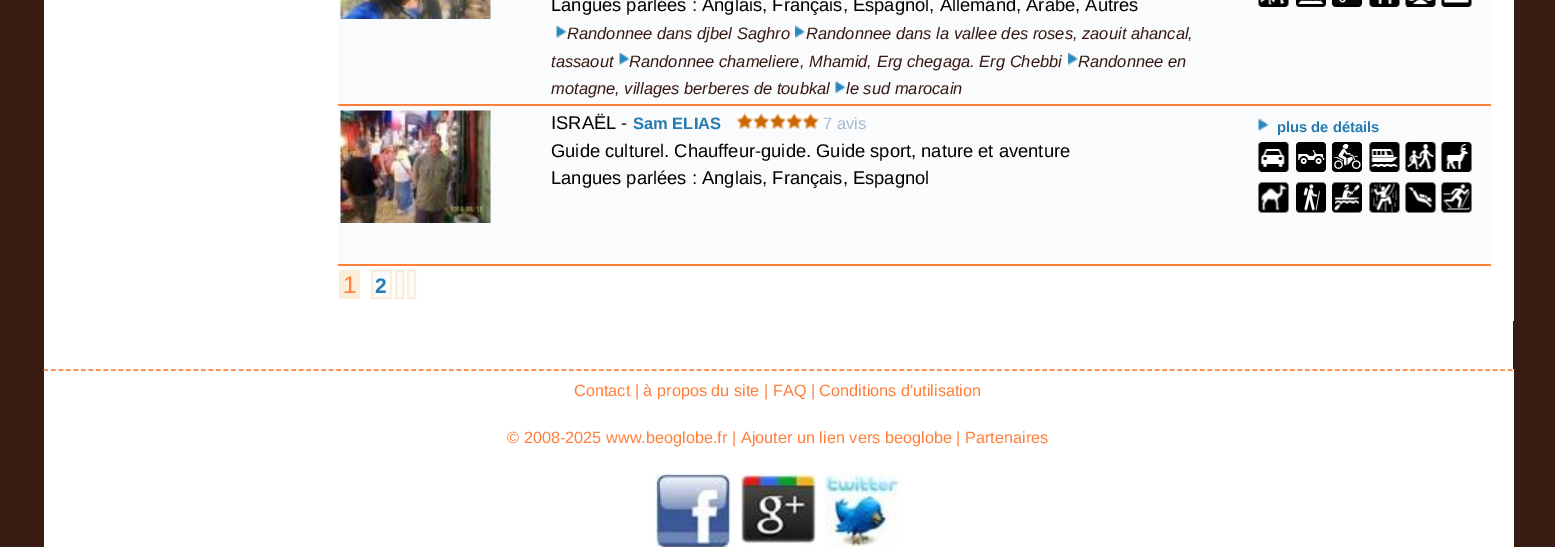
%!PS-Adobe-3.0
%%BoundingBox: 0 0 1555 547
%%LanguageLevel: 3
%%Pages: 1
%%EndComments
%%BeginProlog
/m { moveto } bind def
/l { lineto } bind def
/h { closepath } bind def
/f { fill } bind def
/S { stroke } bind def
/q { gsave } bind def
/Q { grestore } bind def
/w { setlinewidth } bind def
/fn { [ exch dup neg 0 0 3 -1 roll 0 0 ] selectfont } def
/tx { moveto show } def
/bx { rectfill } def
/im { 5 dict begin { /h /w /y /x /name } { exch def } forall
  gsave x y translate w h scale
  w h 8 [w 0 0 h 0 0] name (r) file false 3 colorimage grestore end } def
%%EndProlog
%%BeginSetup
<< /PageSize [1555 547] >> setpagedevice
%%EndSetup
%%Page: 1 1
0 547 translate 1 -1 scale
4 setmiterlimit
0.22 0.106 0.075 setrgbcolor
0 0 1555 547 bx
1 setgray
44 321 1469 48 bx
44 0 1470 321 bx
0.98 0.984 0.988 setrgbcolor
338 0 1153 104 bx
1 0.498 0.231 setrgbcolor
338 104 1153 2 bx
(image0.raw) 340 0 151 19 im
/LiberationSans-Regular 18.35 fn
0 setgray
(Langues parlées : Anglais, Français, Espagnol, Allemand, Arabe, Autres) 551 11 tx
(image1.raw) 556 25 11 14 im
/LiberationSans-Italic 16.5 fn
0.216 0.102 0.075 setrgbcolor
(Randonnee dans djbel Saghro) 567 39 tx
(image2.raw) 795 25 11 14 im
(Randonnee dans la vallee des roses, zaouit ahancal,) 806 39 tx
(tassaout) 551 67 tx
(image1.raw) 619 52 11 14 im
(Randonnee chameliere, Mhamid, Erg chegaga. Erg Chebbi) 629 67 tx
(image3.raw) 1068 52 11 14 im
(Randonnee en) 1078 67 tx
(motagne, villages berberes de toubkal) 551 94 tx
(image4.raw) 835 80 11 14 im
(le sud marocain) 846 94 tx
(image5.raw) 1258 0 31 7 im
(image6.raw) 1296 0 30 7 im
(image7.raw) 1332 0 30 7 im
(image8.raw) 1369 0 31 7 im
(image9.raw) 1405 0 31 7 im
(image10.raw) 1441 0 31 7 im
0.98 0.984 0.988 setrgbcolor
338 108 1153 156 bx
1 0.498 0.231 setrgbcolor
338 264 1153 2 bx
(image11.raw) 340 110 151 113 im
/LiberationSans-Regular 18.35 fn
0 setgray
(ISRAËL -) 551 129 tx
/LiberationSans-Bold 16.5 fn
0.153 0.482 0.69 setrgbcolor
(Sam ELIAS) 633 129 tx
(image12.raw) 736 113 83 16 im
/LiberationSans-Regular 16.5 fn
0.655 0.725 0.827 setrgbcolor
(7 avis) 823 129 tx
/LiberationSans-Regular 18.35 fn
0 setgray
(Guide culturel. Chauffeur-guide. Guide sport, nature et aventure) 551 157 tx
(Langues parlées : Anglais, Français, Espagnol) 551 184 tx
(image13.raw) 1258 118 11 14 im
/LiberationSans-Bold 14.75 fn
0.153 0.482 0.69 setrgbcolor
(plus de détails) 1277 132 tx
(image14.raw) 1258 142 31 30 im
(image15.raw) 1296 142 30 30 im
(image16.raw) 1332 142 30 30 im
(image17.raw) 1369 142 31 30 im
(image18.raw) 1405 142 31 30 im
(image19.raw) 1441 142 31 30 im
(image20.raw) 1258 182 31 31 im
(image21.raw) 1296 182 30 31 im
(image22.raw) 1332 182 30 31 im
(image23.raw) 1369 182 31 31 im
(image24.raw) 1405 182 31 31 im
(image25.raw) 1441 182 31 31 im
0.988 0.929 0.847 setrgbcolor
339 270 21 29 bx
/LiberationSans-Regular 24 fn
1 0.498 0.231 setrgbcolor
(1) 343 293 tx
0.98 0.984 0.988 setrgbcolor
372 271 m 391 271 l 391 298 l 372 298 l h q f Q
0.988 0.929 0.847 setrgbcolor
2 w
S
/LiberationSans-Bold 21 fn
0.153 0.482 0.69 setrgbcolor
(2) 375 293 tx
0.98 0.984 0.988 setrgbcolor
396 271 m 403 271 l 403 298 l 396 298 l h q f Q
0.988 0.929 0.847 setrgbcolor
S
0.98 0.984 0.988 setrgbcolor
408 271 m 415 271 l 415 298 l 408 298 l h q f Q
0.988 0.929 0.847 setrgbcolor
S
1 setgray
44 369 1470 178 bx
1 0.498 0.231 setrgbcolor
1.5 w
[4.5 3.01] 0 setdash
43.5 370 m 1513.5 370 l S
/LiberationSans-Regular 16.3 fn
(Contact | à propos du site | FAQ | Conditions d'utilisation) 574 396 tx
(© 2008-2025 www.beoglobe.fr | Ajouter un lien vers beoglobe | Partenaires) 507 443 tx
(image26.raw) 655 473 76 74 im
(image27.raw) 741 473 75 72 im
(image28.raw) 825 473 75 74 im
showpage
%%EOF
